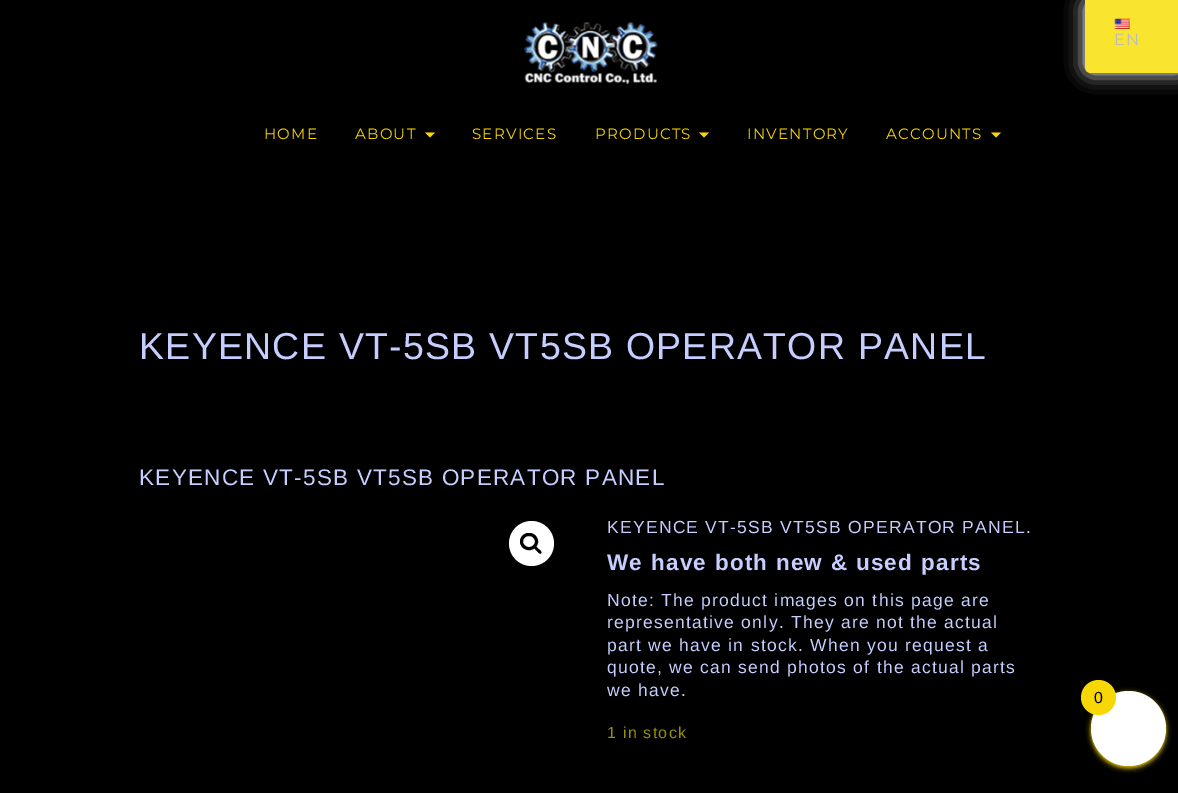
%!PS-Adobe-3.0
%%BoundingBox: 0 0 1178 793
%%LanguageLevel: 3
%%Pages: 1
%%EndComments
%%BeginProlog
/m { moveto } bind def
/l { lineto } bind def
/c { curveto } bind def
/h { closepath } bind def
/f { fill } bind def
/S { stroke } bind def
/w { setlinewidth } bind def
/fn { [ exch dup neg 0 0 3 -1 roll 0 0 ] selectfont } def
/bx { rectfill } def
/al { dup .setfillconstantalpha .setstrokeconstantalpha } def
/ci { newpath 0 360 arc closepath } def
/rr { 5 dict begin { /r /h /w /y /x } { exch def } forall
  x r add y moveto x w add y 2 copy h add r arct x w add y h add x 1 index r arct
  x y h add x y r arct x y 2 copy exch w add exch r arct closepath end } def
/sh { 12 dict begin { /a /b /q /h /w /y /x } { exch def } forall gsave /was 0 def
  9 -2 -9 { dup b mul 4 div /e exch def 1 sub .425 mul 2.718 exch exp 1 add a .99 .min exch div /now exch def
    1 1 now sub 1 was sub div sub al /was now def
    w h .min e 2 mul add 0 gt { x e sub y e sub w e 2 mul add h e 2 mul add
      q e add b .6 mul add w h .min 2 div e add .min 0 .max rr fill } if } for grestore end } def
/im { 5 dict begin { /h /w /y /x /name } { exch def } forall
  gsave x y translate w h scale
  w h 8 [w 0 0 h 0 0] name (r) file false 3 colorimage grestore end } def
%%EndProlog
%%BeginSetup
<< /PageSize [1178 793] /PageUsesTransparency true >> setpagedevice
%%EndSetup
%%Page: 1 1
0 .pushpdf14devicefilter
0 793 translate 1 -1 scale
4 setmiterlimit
0 setgray
0 0 1178 793 bx
1 setgray
1085 0 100 73 6 9.5 1 sh
0.976 0.894 0.18 setrgbcolor
1085 0 m 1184 0 l 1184 67 l 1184 70.5 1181.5 73 1178 73 c 1091 73 l 1087.5 73 1085 70.5 1085 67 c h f
(image0.raw) 1114 18 16 11 im
/Montserrat-Regular 16 fn
0.741 setgray
1114 45 m 1.25 0 (EN) ashow
(image1.raw) 524 22 134 62 im
/Montserrat-Regular 15 fn
0.973 0.843 0.024 setrgbcolor
264 139 m 1.25 0 (HOME) ashow
355 139 m 1.25 0 (ABOUT) ashow
425 132.5 m 435 132.5 l 430 137.5 l h f
472 139 m 1.25 0 (SERVICES) ashow
595 139 m 1.25 0 (PRODUCTS) ashow
699 132.5 m 709 132.5 l 704 137.5 l h f
747 139 m 1.25 0 (INVENTORY) ashow
886 139 m 1.25 0 (ACCOUNTS) ashow
991 132.5 m 1001 132.5 l 996 137.5 l h f
/LiberationSans-Regular 37.5 fn
0.776 0.804 1 setrgbcolor
139 359 m 1.25 0 (KEYENCE VT-5SB VT5SB OPERATOR PANEL) ashow
/LiberationSans-Regular 22.5 fn
139 485 m 1.25 0 (KEYENCE VT-5SB VT5SB OPERATOR PANEL) ashow
1 setgray
531.5 543.5 22.5 ci f
0 setgray
3 w
521.5 534.5 15 14 7 rr S
534 546 m 535.5 545 537.5 548 538.5 549 c 539.5 549.5 542.5 552 541 553.5 c 539.5 554.5 537.5 551.5 536.5 550.5 c 536 550 532.5 547.5 534 546 c h f
/LiberationSans-Regular 17.5 fn
0.776 0.804 1 setrgbcolor
607 533 m 1.25 0 (KEYENCE VT-5SB VT5SB OPERATOR PANEL.) ashow
/LiberationSans-Bold 22.5 fn
607 570 m 1.25 0 (We have both new & used parts) ashow
/LiberationSans-Regular 17.5 fn
607 606 m 1.25 0 (Note: The product images on this page are) ashow
607 628 m 1.25 0 (representative only. They are not the actual) ashow
607 651 m 1.25 0 (part we have in stock. When you request a) ashow
607 673 m 1.25 0 (quote, we can send photos of the actual parts) ashow
607 696 m 1.25 0 (we have.) ashow
/LiberationSans-Regular 16 fn
0.584 0.557 0.035 setrgbcolor
607 738 m 1.25 0 (1 in stock) ashow
0.973 0.843 0.024 setrgbcolor
1091 693 75 75 37.5 2.5 1 sh
1 setgray
1128.5 728.5 37.5 ci f
0.973 0.843 0.024 setrgbcolor
1098.5 697.5 17.5 ci f
0 setgray
1094 703 m 1.25 0 (0) ashow
.poppdf14devicefilter showpage
%%EOF
